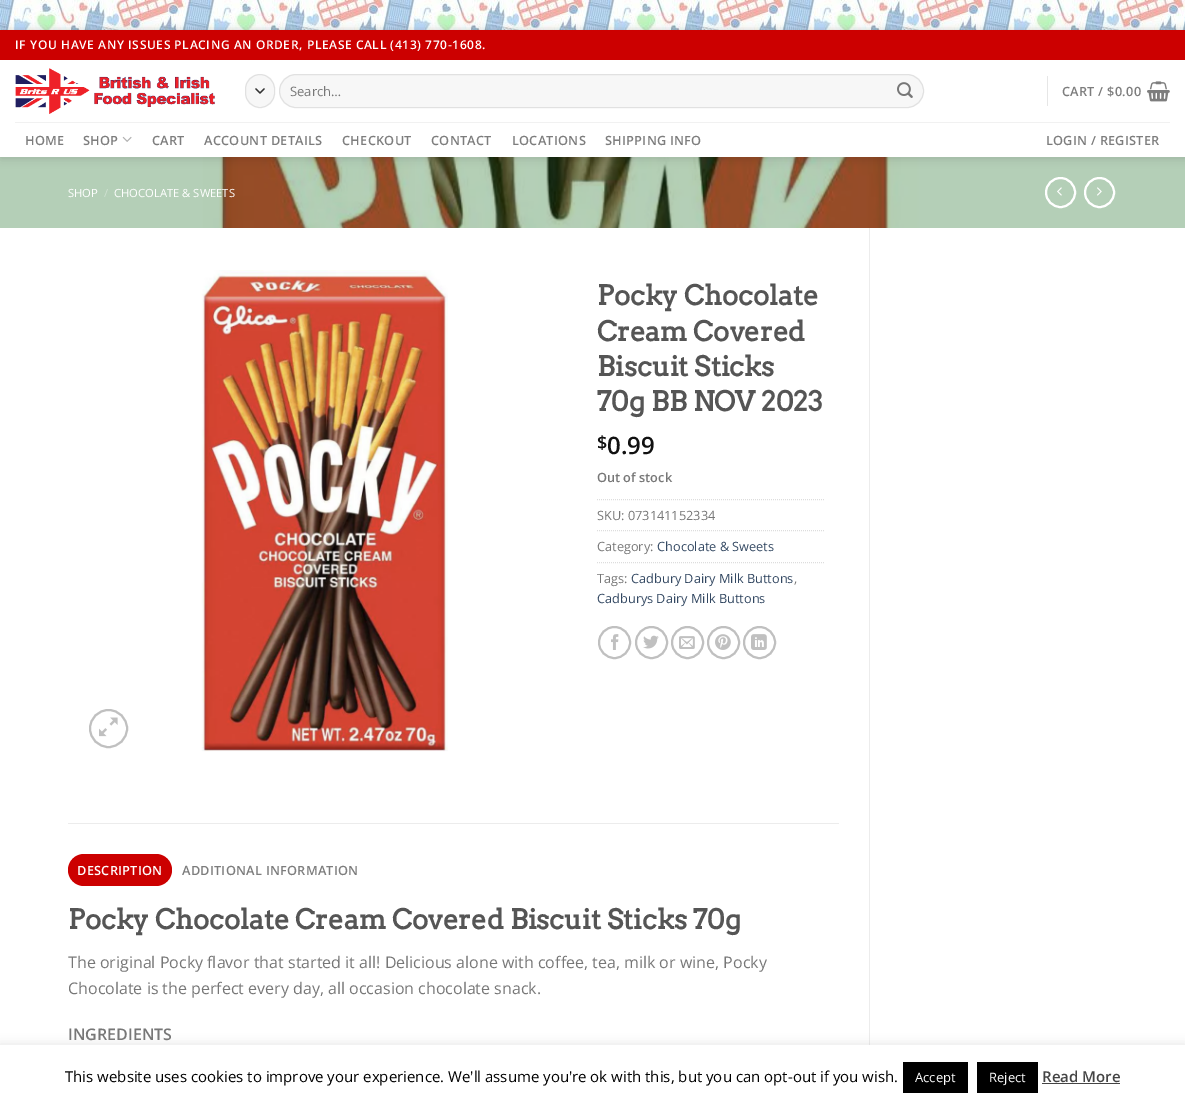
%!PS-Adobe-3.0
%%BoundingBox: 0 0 1185 1105
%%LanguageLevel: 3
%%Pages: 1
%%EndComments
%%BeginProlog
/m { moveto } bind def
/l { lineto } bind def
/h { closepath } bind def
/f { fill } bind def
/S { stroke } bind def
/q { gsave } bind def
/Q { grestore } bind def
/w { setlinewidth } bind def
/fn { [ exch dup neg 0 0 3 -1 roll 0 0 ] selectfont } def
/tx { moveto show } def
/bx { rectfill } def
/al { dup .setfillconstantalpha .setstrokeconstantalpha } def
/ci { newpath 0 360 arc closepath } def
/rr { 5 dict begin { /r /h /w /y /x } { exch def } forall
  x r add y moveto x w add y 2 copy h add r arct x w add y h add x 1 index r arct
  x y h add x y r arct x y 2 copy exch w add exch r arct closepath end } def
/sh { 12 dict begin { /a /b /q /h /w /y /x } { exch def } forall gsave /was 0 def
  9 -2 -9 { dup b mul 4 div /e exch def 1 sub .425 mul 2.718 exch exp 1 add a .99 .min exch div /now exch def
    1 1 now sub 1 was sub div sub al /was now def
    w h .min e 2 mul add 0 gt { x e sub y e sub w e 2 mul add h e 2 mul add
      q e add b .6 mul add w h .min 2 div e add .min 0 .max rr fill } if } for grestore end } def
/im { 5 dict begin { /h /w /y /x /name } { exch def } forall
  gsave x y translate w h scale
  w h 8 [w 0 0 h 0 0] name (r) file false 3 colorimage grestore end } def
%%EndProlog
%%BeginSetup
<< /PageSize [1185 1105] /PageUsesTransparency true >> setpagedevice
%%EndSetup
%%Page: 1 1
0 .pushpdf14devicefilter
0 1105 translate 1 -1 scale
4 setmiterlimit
1 setgray
0 0 1185 1105 bx
(image0.raw) 0 0 1185 30 im
0 setgray
0 33 1185 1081 0 3 0.23 sh
1 setgray
0 60 1185 985 bx
(image5.raw) 0 157 1185 71 im
q
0 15 m 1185 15 l 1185 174 l 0 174 l h 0 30 m 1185 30 l 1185 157 l 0 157 l h eoclip newpath
0 setgray
1 31 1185 127 0 5 0.15 sh
Q
0.8 0 0 setrgbcolor
0 30 1185 30 bx
/OpenSans-SemiBold 12 fn
1 setgray
15 49 m 0.6 0 (IF YOU HAVE ANY ISSUES PLACING AN ORDER, PLEASE CALL \(413\) 770-1608.) ashow
(image1.raw) 15 68 200 46 im
0.969 setgray
245 74 30 34 15 rr f
0.2 setgray
1.3 w
1 setlinecap
1 setlinejoin
256 89 m 260 93 l 264 89 l S
0.09 al
0 setgray
1 w
0 setlinecap
0 setlinejoin
245.5 74.5 29 33 14.5 rr S
1 al
0.969 setgray
279 74 645 34 17 rr f
0.09 al
0 setgray
279.5 74.5 644 33 16.5 rr S
/OpenSans-Regular 13 fn
1 al
0.467 setgray
(Search…) 290 96 tx
(image2.raw) 897 82 16 16 im
0.902 setgray
1047 76 1 30 bx
/OpenSans-SemiBold 12.75 fn
0.49 setgray
1062 96 m 0.25 0 (CART / $0.00) ashow
(image3.raw) 1147 81 23 21 im
0.945 setgray
15 122 1155 1 bx
0.49 setgray
25 145 m 0.25 0 (HOME) ashow
83 145 m 0.25 0 (SHOP) ashow
(image4.raw) 122 136 10 6 im
152 145 m 0.25 0 (CART) ashow
204 145 m 0.25 0 (ACCOUNT DETAILS) ashow
342 145 m 0.25 0 (CHECKOUT) ashow
431 145 m 0.25 0 (CONTACT) ashow
512 145 m 0.25 0 (LOCATIONS) ashow
605 145 m 0.25 0 (SHIPPING INFO) ashow
1046 145 m 0.25 0 (LOGIN / REGISTER) ashow
/OpenSans-Regular 11.25 fn
1 setgray
(SHOP) 68 197 tx
0.808 0.878 0.816 setrgbcolor
(/) 104 197 tx
1 setgray
(CHOCOLATE & SWEETS) 114 197 tx
2 w
1060.5 192.5 14.5 ci S
(image6.raw) 1057 187 5 9 im
1099.5 192.5 14.5 ci S
(image7.raw) 1097 187 5 9 im
0.925 setgray
869 228 1 817 bx
0.753 setgray
108.5 728.5 18.5 ci S
(image8.raw) 99 717 19 20 im
(image9.raw) 201 270 247 482 im
/Arvo-Bold 27.2 fn
0.333 setgray
(Pocky Chocolate) 597 305 tx
(Cream Covered) 597 341 tx
(Biscuit Sticks) 597 376 tx
(70g BB NOV 2023) 597 411 tx
/OpenSans-SemiBold 18 fn
0.067 setgray
($) 597 449 tx
/OpenSans-SemiBold 24 fn
(0.99) 607 454 tx
/OpenSans-SemiBold 12.75 fn
0.467 setgray
(Out of stock) 597 482 tx
0.867 setgray
1 w
[1 1] 0 setdash
597 499.5 m 824 499.5 l S
/OpenSans-Regular 12.75 fn
0.467 setgray
(SKU: 073141152334) 597 520 tx
0.867 setgray
597 530.5 m 824 530.5 l S
0.467 setgray
(Category:) 597 551 tx
0.2 0.282 0.384 setrgbcolor
(Chocolate & Sweets) 657 551 tx
0.867 setgray
597 562.5 m 824 562.5 l S
0.467 setgray
(Tags:) 597 583 tx
0.2 0.282 0.384 setrgbcolor
(Cadbury Dairy Milk Buttons) 631 583 tx
0.467 setgray
(,) 794 583 tx
0.2 0.282 0.384 setrgbcolor
(Cadburys Dairy Milk Buttons) 597 603 tx
0.753 setgray
2 w
[] 0 setdash
614.5 642.5 15.5 ci S
(image10.raw) 611 634 8 16 im
651.5 642.5 15.5 ci S
(image11.raw) 643 635 16 14 im
687.5 642.5 15.5 ci S
(image12.raw) 679 636 16 13 im
723.5 642.5 15.5 ci S
(image13.raw) 715 634 16 16 im
759.5 642.5 15.5 ci S
(image14.raw) 751 634 16 16 im
0.925 setgray
68 823 771 1 bx
0.8 0 0 setrgbcolor
68 854 104 32 16 rr f
/OpenSans-SemiBold 12.75 fn
1 setgray
77 875 m 0.25 0 (DESCRIPTION) ashow
0.49 setgray
182 875 m 0.25 0 (ADDITIONAL INFORMATION) ashow
/Arvo-Bold 27.2 fn
0.333 setgray
(Pocky Chocolate Cream Covered Biscuit Sticks 70g) 68 929 tx
/OpenSans-Regular 16 fn
0.467 setgray
(The original Pocky flavor that started it all! Delicious alone with coffee, tea, milk or wine, Pocky) 68 968 tx
(Chocolate is the perfect every day, all occasion chocolate snack.) 68 994 tx
/OpenSans-SemiBold 16 fn
(INGREDIENTS) 68 1040 tx
0.675 0.671 0.671 setrgbcolor
0 1044 1185 60 0 5 0.3 sh
1 setgray
0 1045 1185 60 bx
/OpenSans-Regular 15 fn
0 setgray
(This website uses cookies to improve your experience. We'll assume you're ok with this, but you can opt-out if you wish.) 65 1082 tx
903 1062 65 31 bx
/OpenSans-Regular 13 fn
1 setgray
(Accept) 915 1082 tx
0 setgray
977 1062 61 31 bx
1 setgray
(Reject) 989 1082 tx
/OpenSans-SemiBold 15 fn
0.267 setgray
(Read More) 1042 1082 tx
1042 1083 78 1 bx
.poppdf14devicefilter showpage
%%EOF
